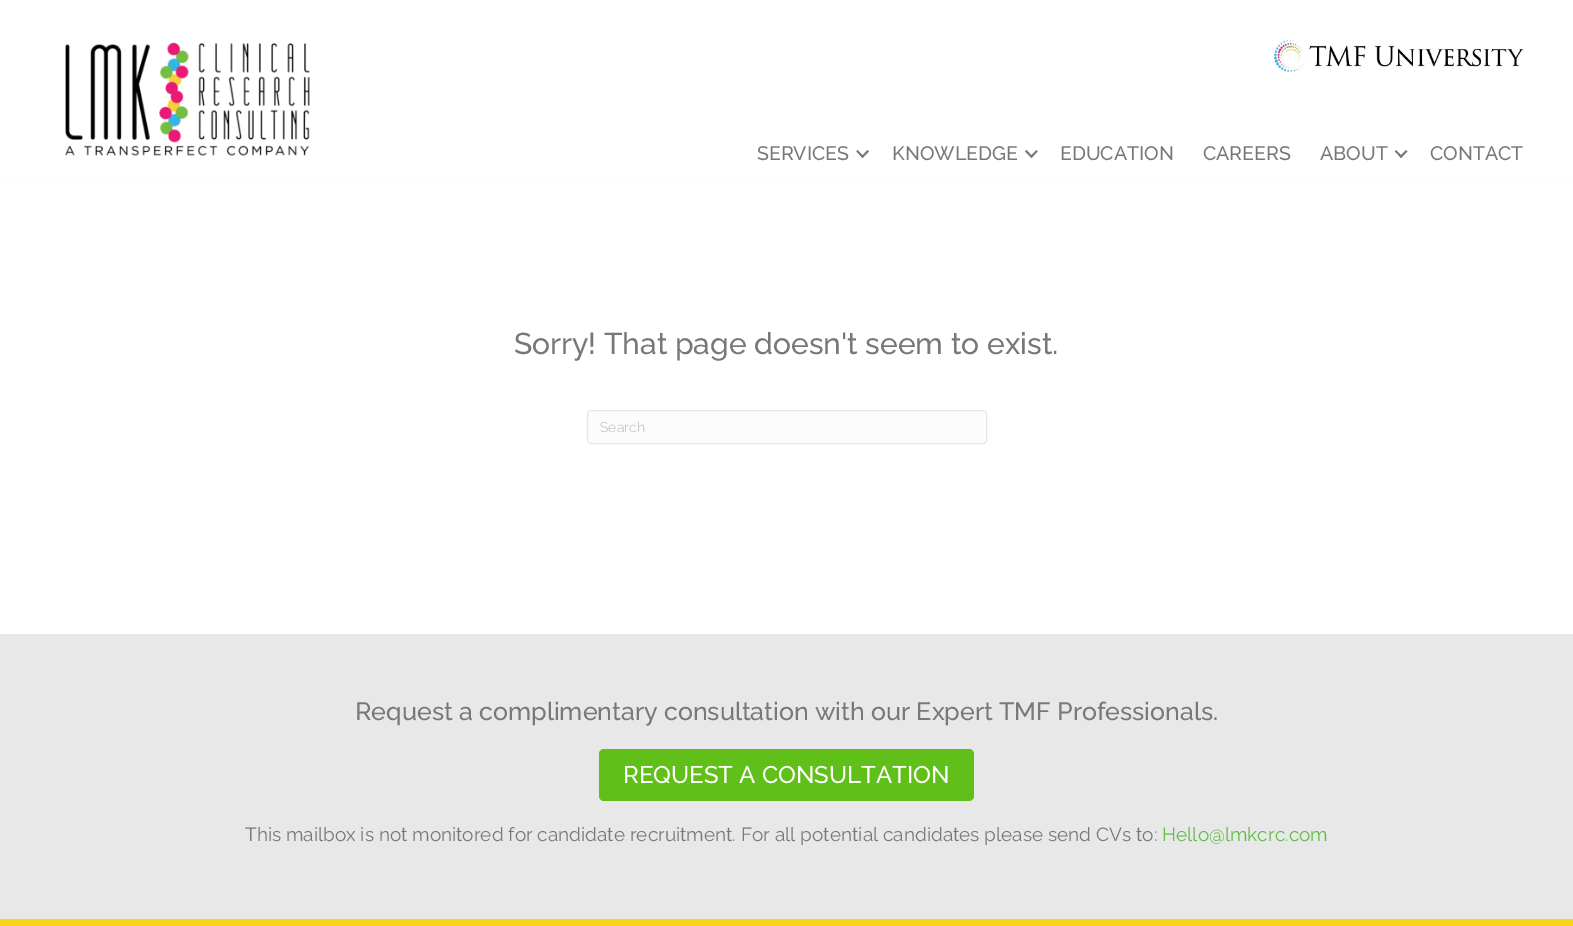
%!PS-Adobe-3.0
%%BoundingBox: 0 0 1573 926
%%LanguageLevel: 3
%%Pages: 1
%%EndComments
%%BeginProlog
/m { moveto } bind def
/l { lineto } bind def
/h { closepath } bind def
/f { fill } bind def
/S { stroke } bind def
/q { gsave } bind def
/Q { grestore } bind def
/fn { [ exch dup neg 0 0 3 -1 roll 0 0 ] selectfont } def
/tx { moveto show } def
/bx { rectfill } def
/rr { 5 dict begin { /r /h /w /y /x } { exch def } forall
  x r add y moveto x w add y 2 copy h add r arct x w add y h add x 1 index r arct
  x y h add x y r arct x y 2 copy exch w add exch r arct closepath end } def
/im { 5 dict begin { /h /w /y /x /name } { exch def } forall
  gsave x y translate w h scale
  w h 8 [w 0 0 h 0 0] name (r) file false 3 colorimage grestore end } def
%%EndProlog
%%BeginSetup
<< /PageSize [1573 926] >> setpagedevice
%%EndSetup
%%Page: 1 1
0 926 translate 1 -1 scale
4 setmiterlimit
1 setgray
0 0 1573 926 bx
0.976 0.988 0.969 setrgbcolor
0 182 1573 1 bx
(image0.raw) 65 42 245 114 im
(image1.raw) 1274 40 250 32 im
/Raleway-Medium 19.5 fn
0.463 0.471 0.482 setrgbcolor
(SERVICES) 757 160 tx
867.5 150 m 869 151.5 l 862.5 158 l 861.5 156.5 l h f
857.5 150 m 864 156.5 l 862.5 158 l 856.5 151.5 l h f
(KNOWLEDGE) 892 160 tx
1036.5 150 m 1037.5 151.5 l 1031.5 158 l 1030 156.5 l h f
1026.5 150 m 1032.5 156.5 l 1031.5 158 l 1025 151.5 l h f
(EDUCATION) 1060 160 tx
(CAREERS) 1203 160 tx
(ABOUT) 1320 160 tx
1406 150 m 1407.5 151.5 l 1401 158 l 1399.5 156.5 l h f
1396 150 m 1402.5 156.5 l 1401 158 l 1395 151.5 l h f
(CONTACT) 1430 160 tx
/Raleway-Medium 30 fn
(Sorry! That page doesn't seem to exist.) 514 354 tx
0.988 setgray
587.5 410.5 399 33 3.5 rr q f Q
0.902 setgray
S
/Raleway-Regular 14 fn
0.776 0.78 0.784 setrgbcolor
(Search) 600 432 tx
0.91 setgray
0 634 1573 285 bx
0.969 0.831 0.09 setrgbcolor
0 919 1573 7 bx
/Raleway-Medium 25 fn
0.463 0.471 0.482 setrgbcolor
(Request a complimentary consultation with our Expert TMF Professionals.) 355 720 tx
0.38 0.749 0.102 setrgbcolor
599 749 375 52 5 rr f
/Raleway-Medium 24 fn
1 setgray
(REQUEST A CONSULTATION) 623 783 tx
/Raleway-Regular 19 fn
0.463 0.471 0.482 setrgbcolor
(This mailbox is not monitored for candidate recruitment. For all potential candidates please send CVs to:) 245 841 tx
0.388 0.737 0.275 setrgbcolor
(Hello@lmkcrc.com) 1162 841 tx
showpage
%%EOF
